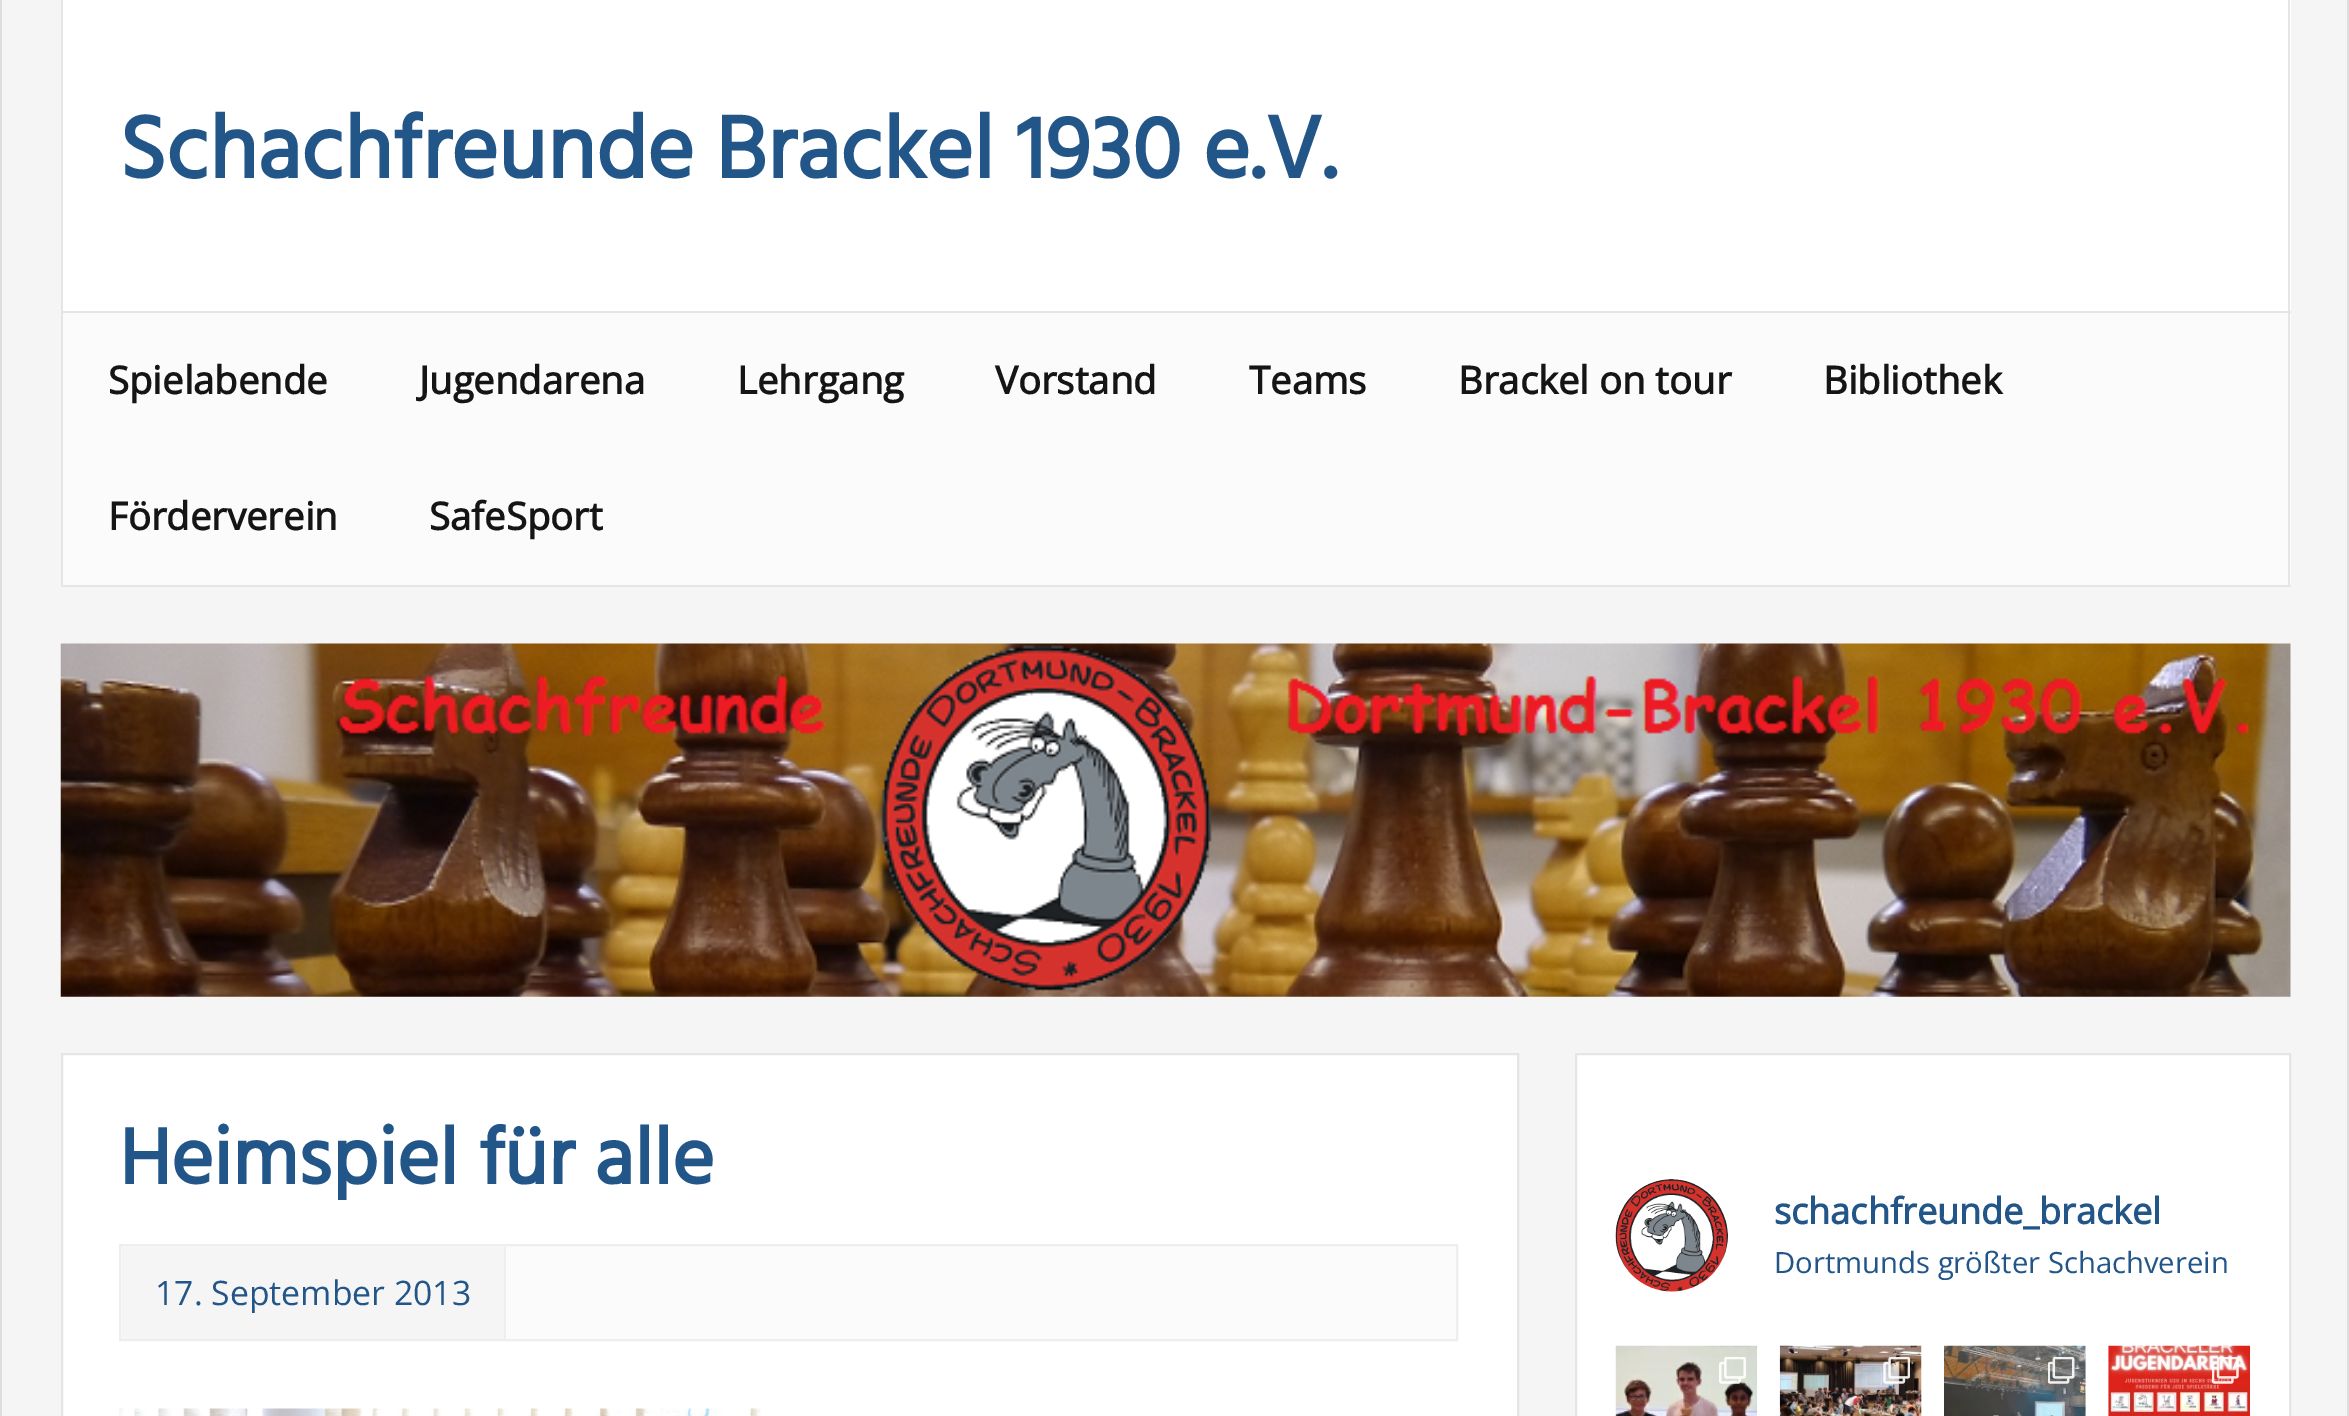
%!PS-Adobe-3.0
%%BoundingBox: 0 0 2349 1416
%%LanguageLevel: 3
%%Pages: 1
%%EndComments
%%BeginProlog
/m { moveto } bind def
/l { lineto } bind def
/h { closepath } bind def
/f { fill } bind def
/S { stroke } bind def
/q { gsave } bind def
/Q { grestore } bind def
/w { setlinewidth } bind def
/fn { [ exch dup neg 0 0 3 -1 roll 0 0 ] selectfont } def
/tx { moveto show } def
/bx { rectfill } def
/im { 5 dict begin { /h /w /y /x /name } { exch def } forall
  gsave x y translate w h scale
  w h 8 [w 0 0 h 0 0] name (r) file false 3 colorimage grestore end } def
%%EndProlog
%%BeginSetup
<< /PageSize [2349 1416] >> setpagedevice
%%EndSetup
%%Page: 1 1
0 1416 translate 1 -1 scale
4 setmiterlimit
0.961 setgray
0 0 2349 1416 bx
0.867 setgray
2347 0 2 1416 bx
0 0 2 1416 bx
1 setgray
63 0 2228 311 bx
0.898 setgray
2288 0 2 313 bx
61 311 2230 2 bx
61 0 2 313 bx
/Hind-Bold 90 fn
0.133 0.333 0.533 setrgbcolor
(Schachfreunde Brackel 1930 e.V.) 119 178 tx
0.984 setgray
63 313 2228 272 bx
0.898 setgray
2288 313 2 274 bx
61 585 2230 2 bx
61 313 2 274 bx
/OpenSans-Bold 38.25 fn
0.082 setgray
(Spielabende) 108 394 tx
(Jugendarena) 419 394 tx
(Lehrgang) 737 394 tx
(Vorstand) 995 394 tx
(Teams) 1249 394 tx
(Brackel on tour) 1458 394 tx
(Bibliothek) 1823 394 tx
(Förderverein) 108 530 tx
(SafeSport) 429 530 tx
(image0.raw) 60 643 2231 354 im
1 setgray
62 1054 m 1518 1054 l 1518 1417 l 62 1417 l h q f Q
0.898 setgray
2 w
S
/Hind-Bold 81 fn
0.133 0.333 0.533 setrgbcolor
(Heimspiel für alle) 119 1184 tx
0.984 setgray
120 1245 m 1457 1245 l 1457 1340 l 120 1340 l h q f Q
0.933 setgray
S
0.961 setgray
122 1247 382 92 bx
0.933 setgray
504 1247 2 92 bx
/OpenSans-Regular 33.75 fn
0.133 0.333 0.533 setrgbcolor
(17. September 2013) 155 1305 tx
(image1.raw) 119 1408 642 8 im
1 setgray
1576 1054 m 2290 1054 l 2290 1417 l 1576 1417 l h q f Q
0.898 setgray
S
(image2.raw) 1615 1179 113 113 im
/OpenSans-Bold 36 fn
0.133 0.333 0.533 setrgbcolor
(schachfreunde_brackel) 1774 1224 tx
/OpenSans-Regular 29.25 fn
(Dortmunds größter Schachverein) 1774 1273 tx
(image3.raw) 1615 1345 143 71 im
(image4.raw) 1719 1357 27 27 im
(image5.raw) 1779 1345 143 71 im
(image6.raw) 1883 1357 27 27 im
(image7.raw) 1944 1345 142 71 im
(image8.raw) 2048 1357 27 27 im
(image9.raw) 2108 1345 142 71 im
(image10.raw) 2212 1357 27 27 im
showpage
%%EOF
